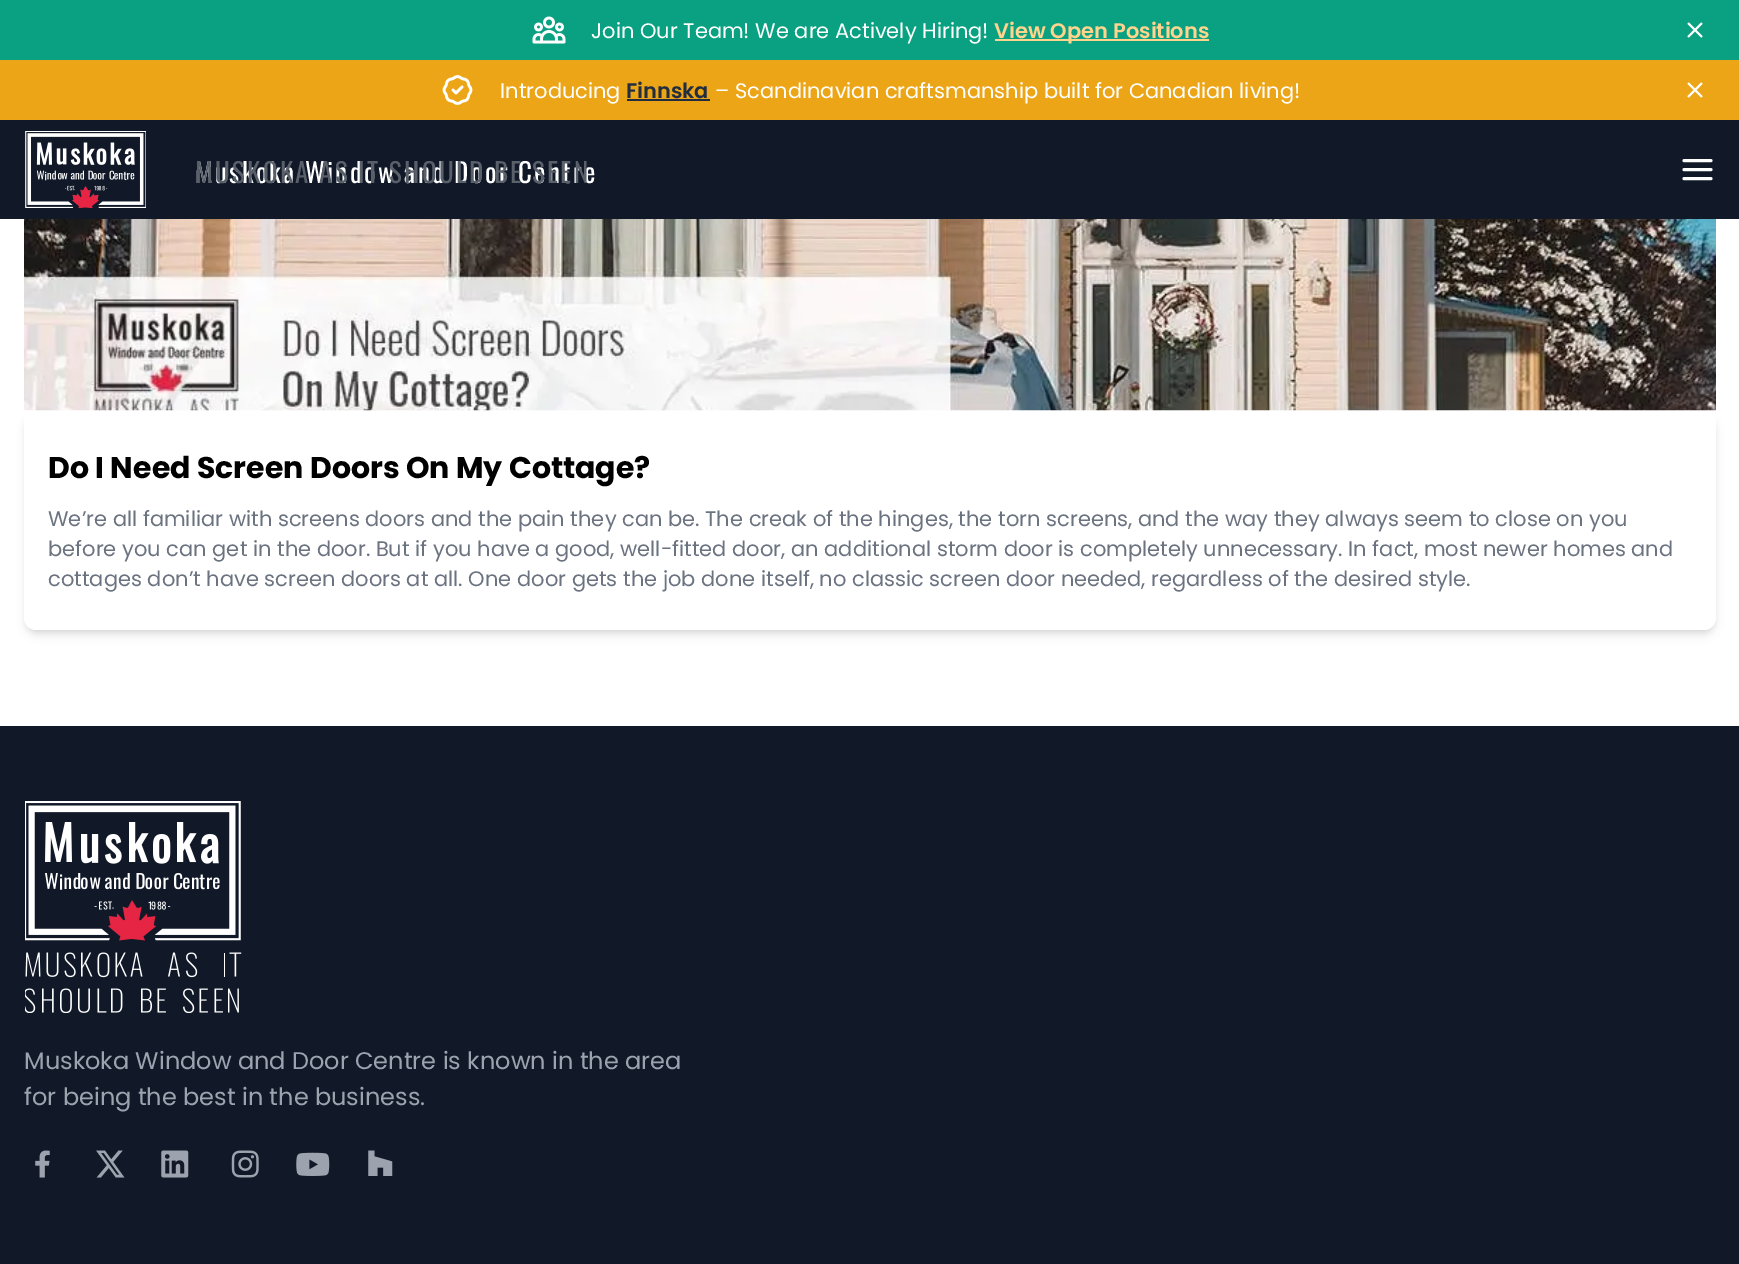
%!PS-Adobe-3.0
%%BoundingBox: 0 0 1739 1264
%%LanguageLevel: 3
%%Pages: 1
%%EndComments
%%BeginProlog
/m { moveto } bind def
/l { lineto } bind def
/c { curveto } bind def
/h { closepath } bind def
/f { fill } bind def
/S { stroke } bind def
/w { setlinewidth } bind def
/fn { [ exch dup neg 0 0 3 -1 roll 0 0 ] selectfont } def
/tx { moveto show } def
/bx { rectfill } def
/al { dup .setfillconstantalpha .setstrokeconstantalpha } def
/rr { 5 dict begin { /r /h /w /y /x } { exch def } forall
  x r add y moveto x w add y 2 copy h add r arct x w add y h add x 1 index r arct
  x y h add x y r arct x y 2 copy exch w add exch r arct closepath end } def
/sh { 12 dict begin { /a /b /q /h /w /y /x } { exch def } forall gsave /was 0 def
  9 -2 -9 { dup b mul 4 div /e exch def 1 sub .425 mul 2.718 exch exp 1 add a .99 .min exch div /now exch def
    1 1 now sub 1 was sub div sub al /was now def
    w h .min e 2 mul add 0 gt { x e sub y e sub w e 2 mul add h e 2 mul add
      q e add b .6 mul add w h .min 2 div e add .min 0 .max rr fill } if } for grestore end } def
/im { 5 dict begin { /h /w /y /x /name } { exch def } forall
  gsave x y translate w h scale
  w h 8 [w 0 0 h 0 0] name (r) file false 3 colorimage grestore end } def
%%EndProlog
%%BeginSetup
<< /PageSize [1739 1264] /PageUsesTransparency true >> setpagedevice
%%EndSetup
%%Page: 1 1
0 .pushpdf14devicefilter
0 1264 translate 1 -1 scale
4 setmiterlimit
1 setgray
0 0 1739 1264 bx
0.035 0.631 0.506 setrgbcolor
0 0 1739 60 bx
(image0.raw) 532 16 34 28 im
/Poppins-Regular 21 fn
1 setgray
(Join Our Team! We are Actively Hiring!) 591 38 tx
1 0.831 0.549 setrgbcolor
995 39 214 2 bx
/Poppins-SemiBold 21 fn
(View Open Positions) 994 38 tx
(image1.raw) 1687 22 16 16 im
0.925 0.647 0.09 setrgbcolor
0 60 1739 60 bx
(image2.raw) 442 75 31 30 im
/Poppins-Regular 21 fn
1 setgray
(Introducing) 500 98 tx
/Poppins-SemiBold 21 fn
0.133 0.18 0.247 setrgbcolor
(Finnska) 626 98 tx
627 99 83 2 bx
/Poppins-Regular 21 fn
1 setgray
(– Scandinavian craftsmanship built for Canadian living!) 715 98 tx
(image3.raw) 1687 82 16 16 im
0.067 0.098 0.157 setrgbcolor
0 120 1739 99 bx
(image4.raw) 25 131 121 77 im
/Oswald-Regular 27 fn
1 setgray
195 183 m 2.3 0 (Muskoka Window and Door Centre) ashow
0.353 0.376 0.416 setrgbcolor
195 183 m 2.3 0 (MUSKOKA AS IT SHOULD BE SEEN) ashow
1 setgray
3 w
1 setlinecap
1 setlinejoin
1684 169.5 m 1711 169.5 l 1684 160.5 m 1711 160.5 l 1684 178.5 m 1711 178.5 l S
0 setgray
27 417 1686 213 9 3 0.1 sh
26 419 1689 216 11 4.5 0.1 sh
(image5.raw) 24 219 1692 192 im
1 setgray
24 411 m 1716 411 l 1716 618 l 1716 624.5 1710.5 630 1704 630 c 36 630 l 29.5 630 24 624.5 24 618 c h f
/Poppins-Bold 30 fn
0 setgray
(Do I Need Screen Doors On My Cottage?) 48 478 tx
/Poppins-Regular 21 fn
0.42 0.447 0.502 setrgbcolor
(We’re all familiar with screens doors and the pain they can be. The creak of the hinges, the torn screens, and the way they always seem to close on you) 48 526 tx
(before you can get in the door. But if you have a good, well-fitted door, an additional storm door is completely unnecessary. In fact, most newer homes and) 48 556 tx
(cottages don’t have screen doors at all. One door gets the job done itself, no classic screen door needed, regardless of the desired style.) 48 586 tx
0.067 0.098 0.157 setrgbcolor
0 726 1739 538 bx
(image6.raw) 25 801 217 212 im
/Poppins-Regular 24 fn
0.612 0.639 0.686 setrgbcolor
(Muskoka Window and Door Centre is known in the area) 24 1069 tx
(for being the best in the business.) 24 1105 tx
(image7.raw) 35 1150 15 28 im
(image8.raw) 96 1150 29 28 im
(image9.raw) 161 1150 28 28 im
(image10.raw) 231 1150 28 28 im
(image11.raw) 296 1152 34 24 im
(image12.raw) 368 1150 25 26 im
.poppdf14devicefilter showpage
%%EOF
